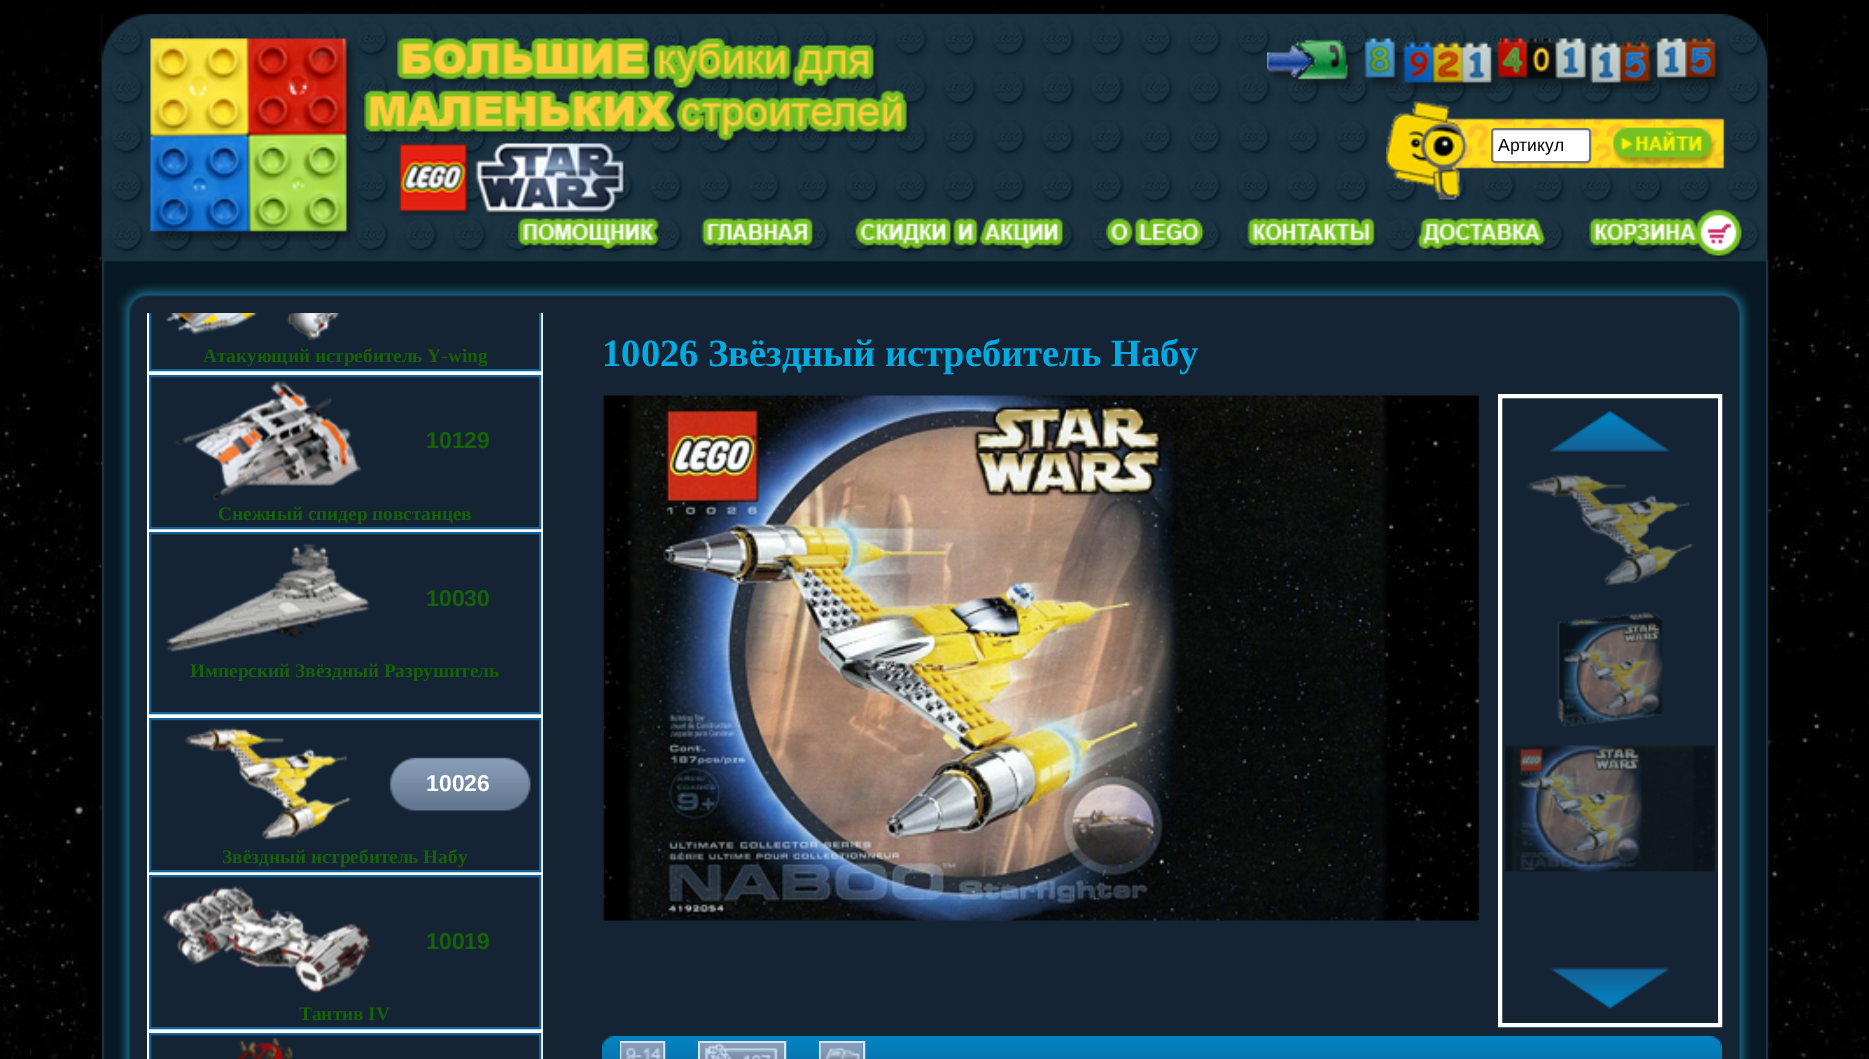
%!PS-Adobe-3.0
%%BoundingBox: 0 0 1869 1059
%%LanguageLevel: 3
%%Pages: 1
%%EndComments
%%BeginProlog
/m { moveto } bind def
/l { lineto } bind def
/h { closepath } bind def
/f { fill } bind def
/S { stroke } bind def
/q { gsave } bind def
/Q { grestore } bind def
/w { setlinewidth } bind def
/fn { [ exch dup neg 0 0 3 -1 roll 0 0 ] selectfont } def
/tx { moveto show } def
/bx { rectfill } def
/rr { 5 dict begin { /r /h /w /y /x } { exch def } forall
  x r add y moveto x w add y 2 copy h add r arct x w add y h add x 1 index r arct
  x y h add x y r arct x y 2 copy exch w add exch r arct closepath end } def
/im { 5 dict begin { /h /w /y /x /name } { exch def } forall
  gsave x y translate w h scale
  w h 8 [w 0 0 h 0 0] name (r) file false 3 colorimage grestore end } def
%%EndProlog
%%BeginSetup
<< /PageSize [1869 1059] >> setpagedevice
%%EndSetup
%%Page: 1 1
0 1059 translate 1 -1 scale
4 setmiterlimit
0 setgray
0 0 1869 1059 bx
(image0.raw) 0 3 1869 1056 im
(image1.raw) 101 14 1667 245 im
(image2.raw) 101 14 47 46 im
(image3.raw) 150 38 206 204 im
(image4.raw) 364 38 548 109 im
(image6.raw) 1721 14 47 46 im
(image5.raw) 1267 38 457 55 im
(image7.raw) 399 143 227 73 im
(image8.raw) 1386 101 339 99 im
1 setgray
1492 129 98 33 3 rr q f Q
0.463 setgray
2 w
S
/LiberationSans-Regular 17.5 fn
0 setgray
(Артикул) 1498 151 tx
(image9.raw) 1613 127 103 39 im
(image10.raw) 518 218 143 35 im
(image11.raw) 701 218 114 31 im
(image12.raw) 855 218 210 35 im
(image13.raw) 1106 218 100 32 im
(image14.raw) 1247 218 130 32 im
(image15.raw) 1417 218 130 35 im
(image16.raw) 1589 209 155 50 im
0.031 0.098 0.145 setrgbcolor
103 260 m 1767 260 l 1767 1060 l 103 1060 l h q f Q
0.102 0.192 0.255 setrgbcolor
S
0.078 0.141 0.208 setrgbcolor
146 311 1577 748 bx
(image18.raw) 119 311 27 748 im
1 setgray
147 313 396 746 bx
0.078 0.141 0.208 setrgbcolor
151 313 388 56 bx
q
147 313 434 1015 rectclip
0.075 0.388 0.6 setrgbcolor
150 218 390 152 rectstroke
Q
(image36.raw) 1723 311 27 748 im
(image17.raw) 117 283 1634 29 im
(image19.raw) 166 313 174 28 im
/LiberationSerif-Bold 19.25 fn
0.09 0.384 0.024 setrgbcolor
(Атакующий истребитель Y-wing) 203 362 tx
0.078 0.141 0.208 setrgbcolor
150 376 m 540 376 l 540 528 l 150 528 l h q f Q
0.075 0.388 0.6 setrgbcolor
S
(image20.raw) 175 381 186 120 im
/LiberationSans-Bold 23 fn
0.09 0.384 0.024 setrgbcolor
(10129) 426 448 tx
/LiberationSerif-Bold 19.25 fn
(Снежный спидер повстанцев) 218 520 tx
0.078 0.141 0.208 setrgbcolor
150 533 m 540 533 l 540 713 l 150 713 l h q f Q
0.075 0.388 0.6 setrgbcolor
S
(image21.raw) 166 543 204 109 im
/LiberationSans-Bold 23 fn
0.09 0.384 0.024 setrgbcolor
(10030) 426 606 tx
/LiberationSerif-Bold 19.25 fn
(Имперский Звёздный Разрушитель) 190 677 tx
0.078 0.141 0.208 setrgbcolor
151 720 388 150 bx
(image22.raw) 389 757 142 54 im
0.075 0.388 0.6 setrgbcolor
150 719 390 152 rectstroke
(image23.raw) 185 727 166 113 im
/LiberationSans-Bold 23 fn
1 setgray
(10026) 426 791 tx
/LiberationSerif-Bold 19.25 fn
0.09 0.384 0.024 setrgbcolor
(Звёздный истребитель Набу) 222 863 tx
0.078 0.141 0.208 setrgbcolor
150 876 m 540 876 l 540 1028 l 150 1028 l h q f Q
0.075 0.388 0.6 setrgbcolor
S
(image24.raw) 162 885 210 109 im
/LiberationSans-Bold 23 fn
0.09 0.384 0.024 setrgbcolor
(10019) 426 949 tx
/LiberationSerif-Bold 19.25 fn
(Тантив IV) 299 1020 tx
0.078 0.141 0.208 setrgbcolor
150 1034 m 540 1034 l 540 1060 l 150 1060 l h q f Q
0.075 0.388 0.6 setrgbcolor
S
(image25.raw) 237 1037 56 22 im
/LiberationSerif-Bold 38.5 fn
0.012 0.667 0.886 setrgbcolor
(10026 Звёздный истребитель Набу) 602 366 tx
(image26.raw) 603 395 876 526 im
1 setgray
4 w
1500 396 220 629 rectstroke
(image27.raw) 1550 410 120 42 im
(image28.raw) 1527 474 166 111 im
(image29.raw) 1557 612 106 115 im
(image30.raw) 1505 745 210 127 im
(image31.raw) 1550 967 120 42 im
(image32.raw) 602 1036 1120 23 im
0.835 0.894 0.918 setrgbcolor
2 w
621 1042 43 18 rectstroke
699 1042 86 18 rectstroke
820 1042 44 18 rectstroke
(image33.raw) 621 1043 43 16 im
(image34.raw) 700 1043 84 16 im
(image35.raw) 820 1043 43 16 im
showpage
%%EOF
